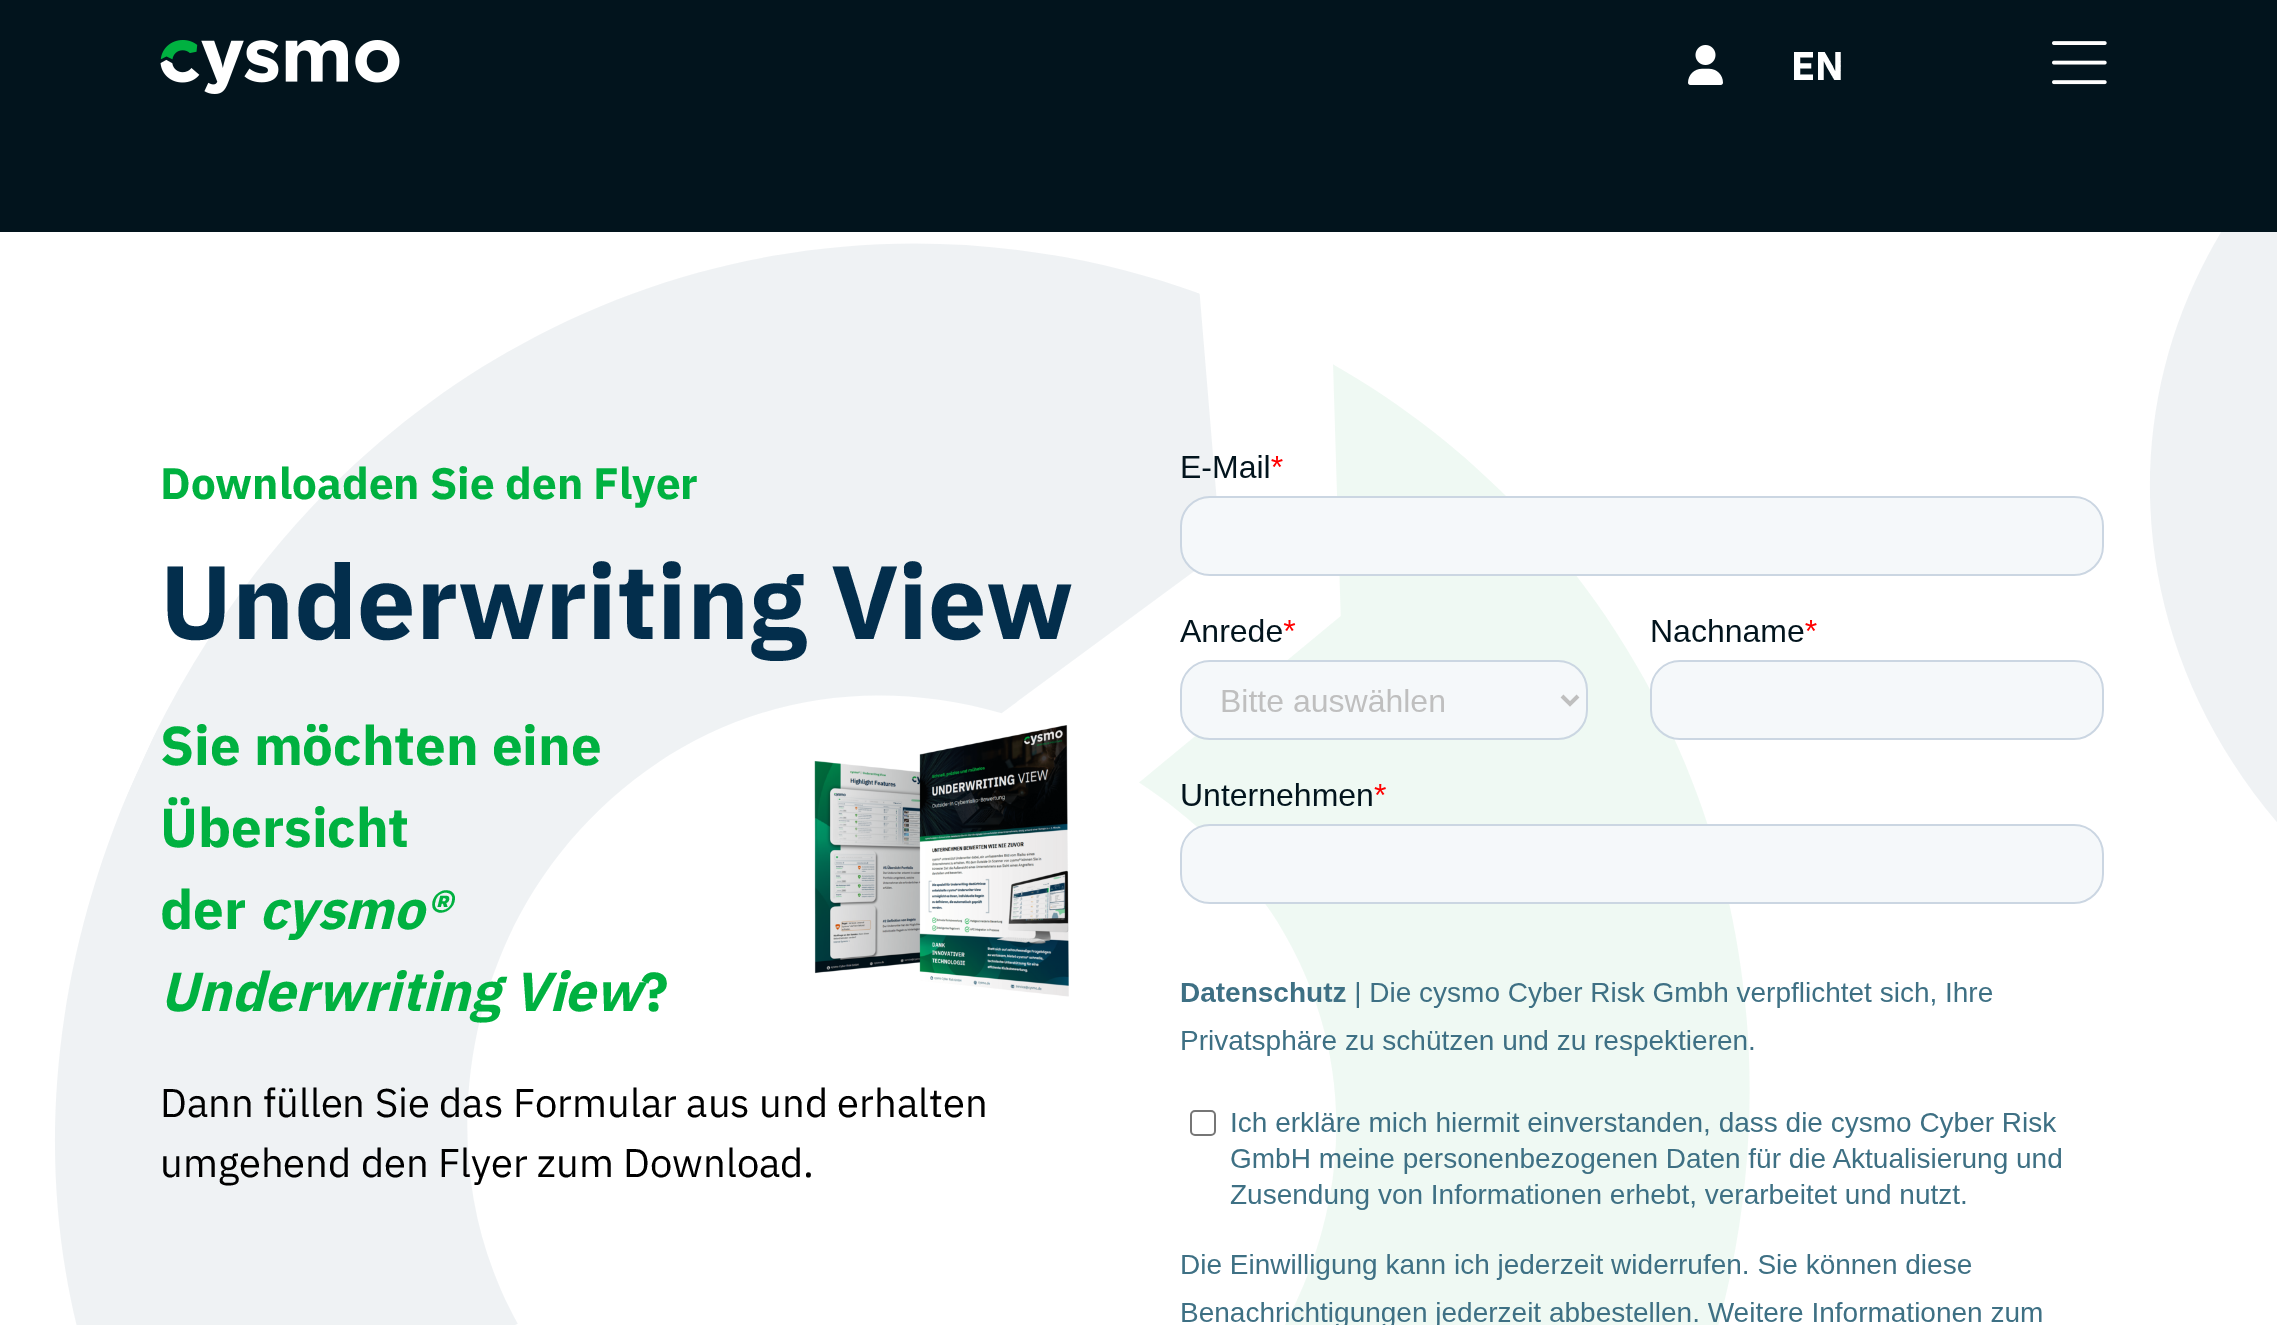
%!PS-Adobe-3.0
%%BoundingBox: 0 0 2277 1325
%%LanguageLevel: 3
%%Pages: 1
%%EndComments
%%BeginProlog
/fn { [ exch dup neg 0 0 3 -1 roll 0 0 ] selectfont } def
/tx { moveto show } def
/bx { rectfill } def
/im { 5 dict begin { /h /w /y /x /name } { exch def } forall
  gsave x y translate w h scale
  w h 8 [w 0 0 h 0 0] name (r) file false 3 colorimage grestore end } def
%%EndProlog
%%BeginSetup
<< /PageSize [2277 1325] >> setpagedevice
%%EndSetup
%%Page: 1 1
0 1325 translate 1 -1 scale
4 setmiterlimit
0.008 0.078 0.114 setrgbcolor
0 0 2277 1325 bx
(image0.raw) 160 40 240 54 im
(image1.raw) 1688 45 35 40 im
/IBMPlexSans-Bold 40 fn
1 setgray
(EN) 1791 80 tx
(image2.raw) 2052 41 55 44 im
(image3.raw) 0 232 2277 1093 im
/IBMPlexSans-Bold 44 fn
0 0.694 0.251 setrgbcolor
(Downloaden Sie den Flyer) 160 499 tx
/IBMPlexSans-Bold 104 fn
0.012 0.18 0.298 setrgbcolor
(Underwriting View) 160 639 tx
/IBMPlexSans-Bold 54.75 fn
0 0.694 0.251 setrgbcolor
(Sie möchten eine) 160 765 tx
(Übersicht) 160 847 tx
(der) 160 929 tx
/IBMPlexSans-BoldItalic 54.75 fn
(cysmo®) 259 929 tx
(Underwriting View) 160 1011 tx
/IBMPlexSans-Bold 54.75 fn
(?) 641 1011 tx
(image4.raw) 814 725 255 272 im
/IBMPlexSans-Regular 40 fn
0 setgray
(Dann füllen Sie das Formular aus und erhalten) 160 1117 tx
(umgehend den Flyer zum Download.) 160 1177 tx
(image5.raw) 1180 455 924 870 im
showpage
%%EOF
